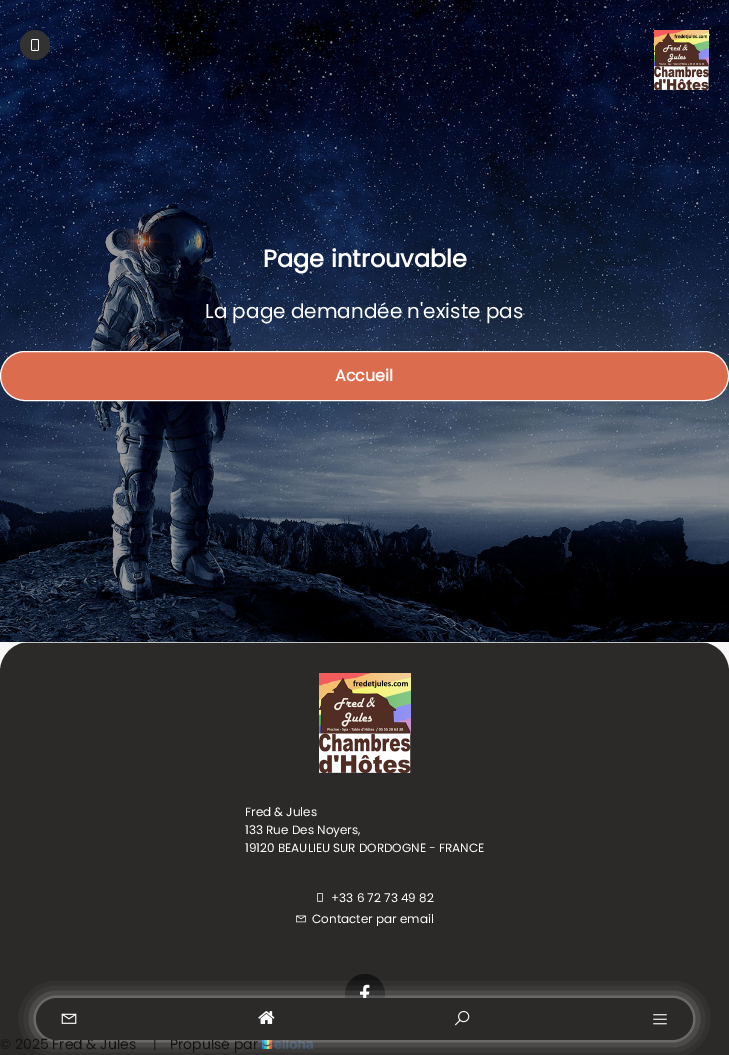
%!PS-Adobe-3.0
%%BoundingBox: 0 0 729 1055
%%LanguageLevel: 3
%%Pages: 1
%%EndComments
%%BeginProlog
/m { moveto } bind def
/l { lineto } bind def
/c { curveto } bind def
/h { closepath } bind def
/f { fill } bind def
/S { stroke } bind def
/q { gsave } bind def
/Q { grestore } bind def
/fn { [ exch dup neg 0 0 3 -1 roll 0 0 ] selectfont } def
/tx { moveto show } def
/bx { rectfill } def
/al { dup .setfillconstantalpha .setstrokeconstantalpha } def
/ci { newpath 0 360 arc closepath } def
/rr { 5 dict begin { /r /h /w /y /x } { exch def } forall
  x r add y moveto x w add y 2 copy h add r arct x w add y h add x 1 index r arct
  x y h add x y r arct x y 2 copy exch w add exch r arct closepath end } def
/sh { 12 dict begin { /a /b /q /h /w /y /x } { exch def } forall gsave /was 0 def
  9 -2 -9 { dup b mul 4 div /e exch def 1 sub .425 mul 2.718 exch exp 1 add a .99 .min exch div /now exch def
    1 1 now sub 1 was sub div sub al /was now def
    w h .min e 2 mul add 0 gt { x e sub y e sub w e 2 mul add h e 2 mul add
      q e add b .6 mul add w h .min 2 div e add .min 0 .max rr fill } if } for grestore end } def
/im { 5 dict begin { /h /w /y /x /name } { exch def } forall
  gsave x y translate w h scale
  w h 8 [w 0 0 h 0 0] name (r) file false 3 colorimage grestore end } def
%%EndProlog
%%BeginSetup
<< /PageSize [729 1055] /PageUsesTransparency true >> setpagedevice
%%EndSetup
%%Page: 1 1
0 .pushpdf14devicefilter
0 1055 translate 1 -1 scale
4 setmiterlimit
0.969 setgray
0 0 729 1055 bx
(image0.raw) 0 0 729 642 im
0.196 setgray
35 45 15 ci f
(image1.raw) 31 39 8 12 im
(image2.raw) 654 30 55 60 im
0.173 0.165 0.161 setrgbcolor
30 642 m 699 642 l 715.5 642 729 655.5 729 672 c 729 1034 l 0 1034 l 0 672 l 0 655.5 13.5 642 30 642 c h f
0.075 setgray
365 994 20 ci f
(image10.raw) 360 984 10 14 im
0.173 0.165 0.161 setrgbcolor
0 1034 729 21 bx
(image11.raw) 262 1040 51 9 im
1 setgray
41 1003 647 32 16 10 1 sh
/Poppins-Regular 14 fn
0.075 setgray
(© 2025 Fred & Jules) 0 1049 tx
/Poppins-Regular 12 fn
(|) 153 1049 tx
/Poppins-Regular 14 fn
(Propulsé par) 170 1049 tx
0.173 0.165 0.161 setrgbcolor
36 998 657 42 21 rr f
(image3.raw) 61 1013 16 11 im
(image4.raw) 258 1011 17 13 im
(image5.raw) 454 1010 16 16 im
(image6.raw) 653 1014 14 11 im
/Poppins-Bold 24 fn
1 setgray
(Page introuvable) 263 267 tx
/Poppins-Regular 20 fn
(La page demandée n'existe pas) 205 318 tx
0.863 0.424 0.306 setrgbcolor
0.5 351.5 728 49 24.5 rr q f Q
1 setgray
S
/Poppins-Bold 16 fn
(Accueil) 335 381 tx
0.7 al
15 642 699 1 bx
1 al
(image7.raw) 319 673 92 100 im
/Poppins-Regular 12 fn
(Fred & Jules) 245 816 tx
(133 Rue Des Noyers,) 245 834 tx
(19120 BEAULIEU SUR DORDOGNE - FRANCE) 245 852 tx
(image8.raw) 317 893 6 9 im
(+33 6 72 73 49 82) 331 902 tx
(image9.raw) 296 915 10 8 im
(Contacter par email) 312 923 tx
.poppdf14devicefilter showpage
%%EOF
